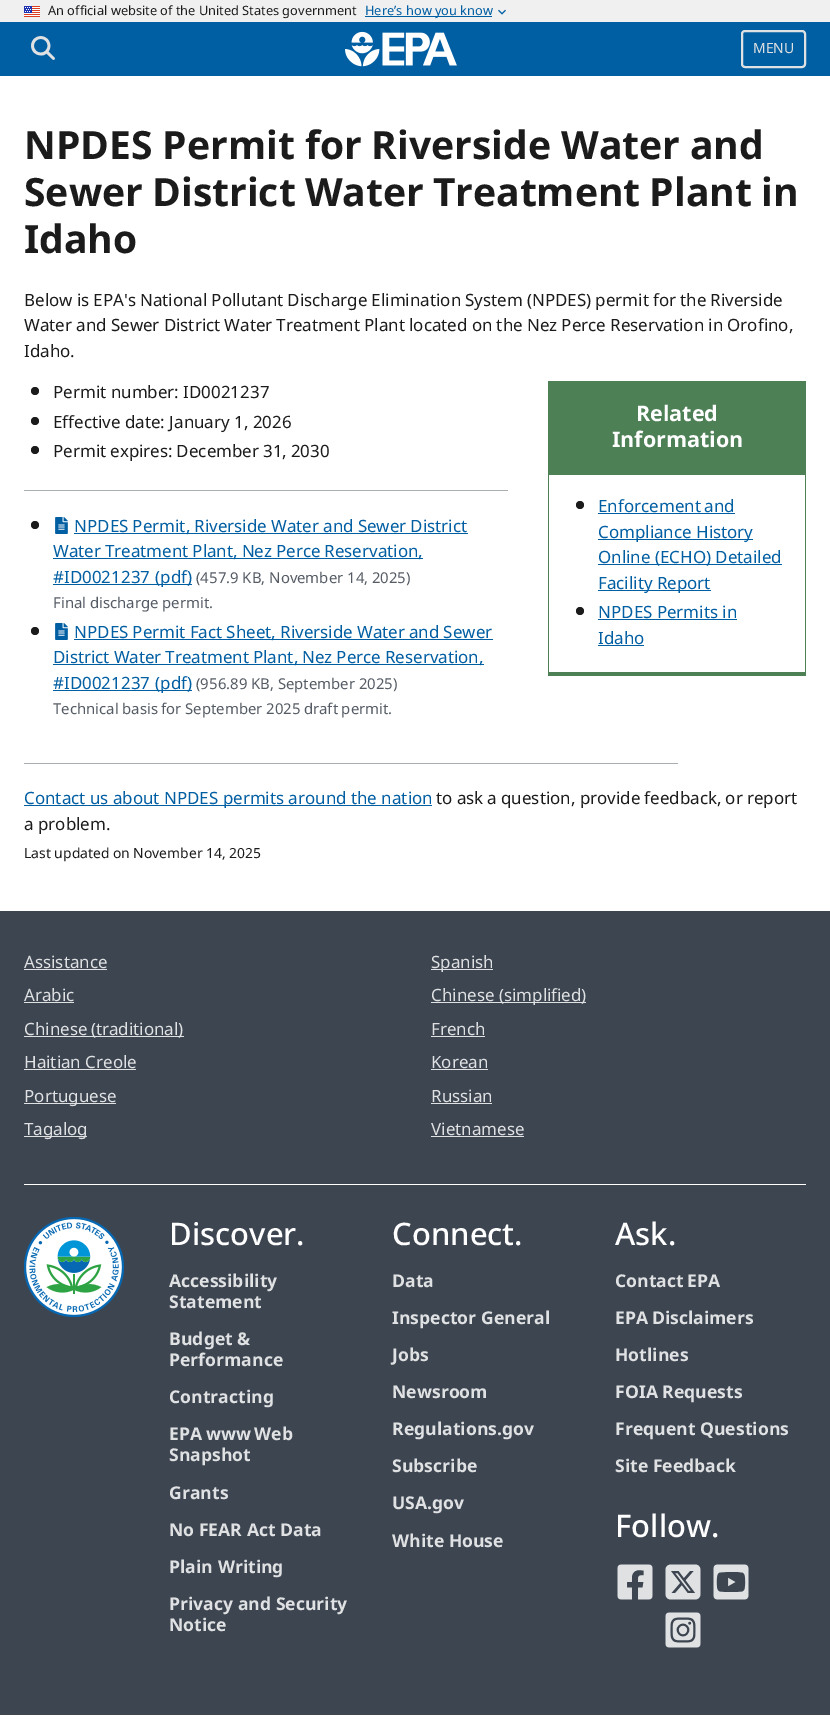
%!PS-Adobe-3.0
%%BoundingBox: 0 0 830 1733
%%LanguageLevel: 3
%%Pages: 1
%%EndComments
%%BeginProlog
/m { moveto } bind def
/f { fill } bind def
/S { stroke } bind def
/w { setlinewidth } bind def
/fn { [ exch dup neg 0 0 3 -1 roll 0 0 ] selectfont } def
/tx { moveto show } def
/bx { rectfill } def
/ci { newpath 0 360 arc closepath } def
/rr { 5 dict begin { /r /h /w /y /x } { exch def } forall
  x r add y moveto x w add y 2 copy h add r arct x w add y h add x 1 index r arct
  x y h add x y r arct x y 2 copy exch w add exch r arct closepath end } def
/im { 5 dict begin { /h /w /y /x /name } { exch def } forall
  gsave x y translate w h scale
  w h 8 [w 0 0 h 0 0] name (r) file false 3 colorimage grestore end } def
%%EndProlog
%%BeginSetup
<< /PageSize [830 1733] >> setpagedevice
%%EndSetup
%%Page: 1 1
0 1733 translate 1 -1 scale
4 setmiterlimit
1 setgray
0 0 830 1733 bx
0.941 setgray
0 0 830 22 bx
(image0.raw) 24 6 16 11 im
/NotoSansArabic-Regular 12.8 fn
0.106 setgray
(An official website of the United States government) 48 15 tx
0 0.369 0.635 setrgbcolor
365 16 127 1 bx
(Here’s how you know) 365 15 tx
(image1.raw) 498 9 8 6 im
0 22 830 54 bx
(image2.raw) 31 36 24 24 im
(image3.raw) 345 31 112 36 im
0.875 0.882 0.886 setrgbcolor
2 w
742 31 63 36 3 rr S
/NotoSansArabic-Regular 14 fn
(MENU) 753 53 tx
/NotoSansArabic-Bold 39 fn
0.106 setgray
24 159 m -0.25 0 32 (NPDES Permit for Riverside Water and) widthshow
24 206 m -1 0 32 (Sewer District Water Treatment Plant in) widthshow
(Idaho) 24 253 tx
/NotoSansArabic-Regular 16.95 fn
24 306 m -0.3 0 32 (Below is EPA's National Pollutant Discharge Elimination System \(NPDES\) permit for the Riverside) widthshow
24 331 m -0.25 0 32 (Water and Sewer District Water Treatment Plant located on the Nez Perce Reservation in Orofino,) widthshow
(Idaho.) 24 357 tx
35 391 4 ci f
(Permit number: ID0021237) 53 398 tx
35 421 4 ci f
(Effective date: January 1, 2026) 53 428 tx
35 450 4 ci f
53 457 m -0.5 0 32 (Permit expires: December 31, 2030) widthshow
0.302 0.502 0.333 setrgbcolor
548 381 258 94 bx
/NotoSansArabic-Bold 21.5 fn
1 setgray
(Related) 636 421 tx
(Information) 612 447 tx
0.302 0.502 0.333 setrgbcolor
805 474 1 202 bx
548 672 258 4 bx
548 474 1 202 bx
0.106 setgray
580 505 4 ci f
/NotoSansArabic-Regular 16.95 fn
0 0.369 0.635 setrgbcolor
598 512 m -1 0 32 (Enforcement and) widthshow
598 513 137 1 bx
598 539 155 1 bx
(Compliance History) 598 538 tx
598 564 184 1 bx
(Online \(ECHO\) Detailed) 598 563 tx
598 590 113 1 bx
(Facility Report) 598 589 tx
0.106 setgray
580 611 4 ci f
0 0.369 0.635 setrgbcolor
(NPDES Permits in) 598 618 tx
598 619 139 1 bx
(Idaho) 598 644 tx
598 645 46 1 bx
0.663 0.682 0.694 setrgbcolor
24 490 484 1 bx
0.106 setgray
35 525 4 ci f
(image4.raw) 55 517 13 17 im
0 0.369 0.635 setrgbcolor
74 533 394 1 bx
74 532 m -0.25 0 32 (NPDES Permit, Riverside Water and Sewer District) widthshow
53 558 370 1 bx
53 557 m -0.5 0 32 (Water Treatment Plant, Nez Perce Reservation,) widthshow
53 584 139 1 bx
53 583 m 1 0 32 (#ID0021237 \(pdf\)) widthshow
/NotoSansArabic-Regular 14.9 fn
0.337 0.361 0.396 setrgbcolor
(\(457.9 KB, November 14, 2025\)) 196 583 tx
(Final discharge permit.) 53 608 tx
0.106 setgray
35 631 4 ci f
(image4.raw) 55 623 13 17 im
0 0.369 0.635 setrgbcolor
74 639 419 1 bx
/NotoSansArabic-Regular 16.95 fn
74 638 m -0.25 0 32 (NPDES Permit Fact Sheet, Riverside Water and Sewer) widthshow
53 664 431 1 bx
53 663 m -0.5 0 32 (District Water Treatment Plant, Nez Perce Reservation,) widthshow
53 690 139 1 bx
53 689 m 1 0 32 (#ID0021237 \(pdf\)) widthshow
/NotoSansArabic-Regular 14.9 fn
0.337 0.361 0.396 setrgbcolor
(\(956.89 KB, September 2025\)) 196 689 tx
53 714 m -0.25 0 32 (Technical basis for September 2025 draft permit.) widthshow
0.663 0.682 0.694 setrgbcolor
24 763 654 1 bx
0 0.369 0.635 setrgbcolor
24 805 408 1 bx
/NotoSansArabic-Regular 16.95 fn
(Contact us about NPDES permits around the nation) 24 804 tx
0.106 setgray
436 804 m -0.25 0 32 (to ask a question, provide feedback, or report) widthshow
(a problem.) 24 830 tx
/NotoSansArabic-Regular 13.9 fn
(Last updated on November 14, 2025) 24 858 tx
0.239 0.271 0.318 setrgbcolor
0 911 830 804 bx
1 setgray
24 1184 782 1 bx
/NotoSansArabic-Regular 16.95 fn
0.875 0.882 0.886 setrgbcolor
(Assistance) 24 968 tx
24 969 83 1 bx
431 969 62 1 bx
(Spanish) 431 968 tx
(Arabic) 24 1001 tx
24 1002 50 1 bx
431 1002 155 1 bx
(Chinese \(simplified\)) 431 1001 tx
24 1036 160 1 bx
24 1035 m -1 0 32 (Chinese \(traditional\)) widthshow
(French) 431 1035 tx
431 1036 54 1 bx
(Haitian Creole) 24 1068 tx
24 1069 112 1 bx
(Korean) 431 1068 tx
431 1069 57 1 bx
24 1103 92 1 bx
(Portuguese) 24 1102 tx
(Russian) 431 1102 tx
431 1103 61 1 bx
24 1136 63 1 bx
(Tagalog) 24 1135 tx
(Vietnamese) 431 1135 tx
431 1136 93 1 bx
(image5.raw) 24 1217 100 100 im
/NotoSansArabic-Medium 31 fn
1 setgray
(Discover.) 169 1245 tx
/NotoSansArabic-Bold 17.6 fn
0.875 0.882 0.886 setrgbcolor
(Accessibility) 169 1287 tx
(Statement) 169 1308 tx
(Budget &) 169 1345 tx
(Performance) 169 1366 tx
(Contracting) 169 1403 tx
169 1440 m -1 0 32 (EPA www Web) widthshow
(Snapshot) 169 1461 tx
(Grants) 169 1499 tx
(No FEAR Act Data) 169 1536 tx
(Plain Writing) 169 1573 tx
(Privacy and Security) 169 1610 tx
(Notice) 169 1631 tx
/NotoSansArabic-Medium 31 fn
1 setgray
(Connect.) 392 1245 tx
/NotoSansArabic-Bold 17.6 fn
0.875 0.882 0.886 setrgbcolor
(Data) 392 1287 tx
(Inspector General) 392 1324 tx
(Jobs) 392 1361 tx
(Newsroom) 392 1398 tx
(Regulations.gov) 392 1435 tx
(Subscribe) 392 1472 tx
(USA.gov) 392 1509 tx
(White House) 392 1547 tx
/NotoSansArabic-Medium 31 fn
1 setgray
(Ask.) 615 1245 tx
/NotoSansArabic-Bold 17.6 fn
0.875 0.882 0.886 setrgbcolor
615 1287 m -1 0 32 (Contact EPA) widthshow
615 1324 m -1 0 32 (EPA Disclaimers) widthshow
(Hotlines) 615 1361 tx
(FOIA Requests) 615 1398 tx
(Frequent Questions) 615 1435 tx
(Site Feedback) 615 1472 tx
/NotoSansArabic-Medium 31 fn
1 setgray
(Follow.) 615 1537 tx
(image6.raw) 617 1564 36 36 im
(image7.raw) 665 1564 36 36 im
(image8.raw) 713 1564 36 36 im
(image9.raw) 665 1612 36 36 im
showpage
%%EOF
